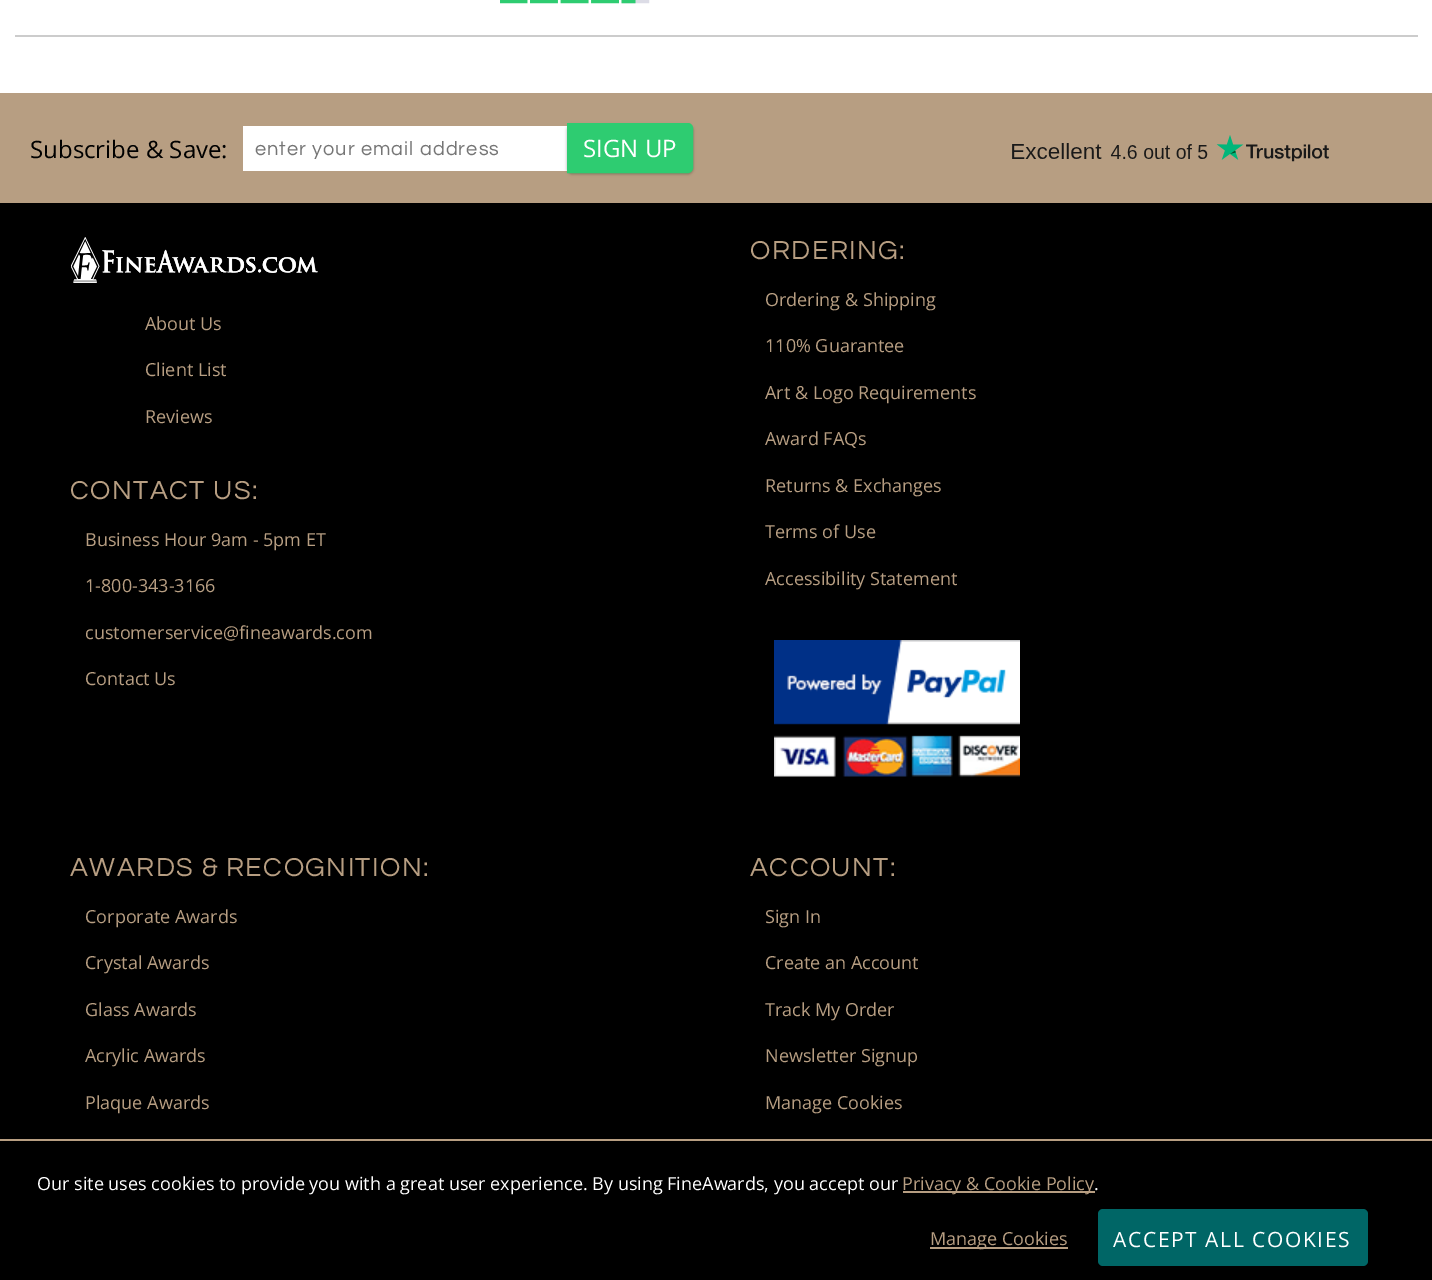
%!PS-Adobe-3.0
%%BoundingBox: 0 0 1432 1280
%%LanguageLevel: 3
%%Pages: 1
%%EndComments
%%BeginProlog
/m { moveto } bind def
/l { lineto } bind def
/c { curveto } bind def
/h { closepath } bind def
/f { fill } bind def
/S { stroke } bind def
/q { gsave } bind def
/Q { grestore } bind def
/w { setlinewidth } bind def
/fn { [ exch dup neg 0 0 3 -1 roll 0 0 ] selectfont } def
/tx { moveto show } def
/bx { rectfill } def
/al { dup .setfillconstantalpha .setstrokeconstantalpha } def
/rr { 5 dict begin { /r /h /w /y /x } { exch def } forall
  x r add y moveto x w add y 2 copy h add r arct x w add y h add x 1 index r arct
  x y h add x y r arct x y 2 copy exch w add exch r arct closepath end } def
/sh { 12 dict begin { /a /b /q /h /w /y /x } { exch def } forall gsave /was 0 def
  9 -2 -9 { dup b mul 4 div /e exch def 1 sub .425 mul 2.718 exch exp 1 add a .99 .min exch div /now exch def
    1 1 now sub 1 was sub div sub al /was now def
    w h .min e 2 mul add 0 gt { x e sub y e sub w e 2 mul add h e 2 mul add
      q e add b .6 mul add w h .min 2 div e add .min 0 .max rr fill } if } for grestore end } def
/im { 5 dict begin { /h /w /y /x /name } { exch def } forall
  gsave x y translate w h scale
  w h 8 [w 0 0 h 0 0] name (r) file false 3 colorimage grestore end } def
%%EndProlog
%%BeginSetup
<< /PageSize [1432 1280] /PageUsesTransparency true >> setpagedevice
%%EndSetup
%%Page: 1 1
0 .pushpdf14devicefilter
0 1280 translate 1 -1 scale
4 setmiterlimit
1 setgray
0 0 1432 1280 bx
0.8 setgray
15 35 1403 2 bx
(image0.raw) 500 0 150 4 im
0.718 0.62 0.51 setrgbcolor
0 93 1432 110 bx
/OpenSans-Regular 24 fn
0 setgray
(Subscribe & Save:) 30 158 tx
1 setgray
243 126 324 45 bx
/Questrial-Regular 20 fn
0.459 setgray
255 155 m 1 0 (enter your email address) ashow
0 setgray
567 125 126 49 5 1.5 0.3 sh
0.18 0.8 0.443 setrgbcolor
568 124 m 688 124 l 690 124 692 126 692 128 c 692 168 l 692 170 690 172 688 172 c 568 172 l h q f Q
2 w
S
/OpenSans-Regular 24 fn
1 setgray
(SIGN UP) 583 157 tx
(image1.raw) 1012 135 317 27 im
0 setgray
0 203 1432 936 bx
(image2.raw) 71 237 247 46 im
/OpenSans-Regular 18 fn
0.718 0.62 0.51 setrgbcolor
(About Us) 145 330 tx
(Client List) 145 376 tx
(Reviews) 145 423 tx
/Questrial-Regular 27 fn
70 499 m 1.5 0 (CONTACT US:) ashow
/OpenSans-Regular 18 fn
(Business Hour 9am - 5pm ET) 85 546 tx
(1-800-343-3166) 85 592 tx
(customerservice@fineawards.com) 85 639 tx
(Contact Us) 85 685 tx
/Questrial-Regular 27 fn
750 259 m 1.5 0 (ORDERING:) ashow
/OpenSans-Regular 18 fn
(Ordering & Shipping) 765 306 tx
(110% Guarantee) 765 352 tx
(Art & Logo Requirements) 765 399 tx
(Award FAQs) 765 445 tx
(Returns & Exchanges) 765 492 tx
(Terms of Use) 765 538 tx
(Accessibility Statement) 765 585 tx
(image3.raw) 774 640 246 137 im
/Questrial-Regular 27 fn
70 876 m 1.5 0 (AWARDS & RECOGNITION:) ashow
/OpenSans-Regular 18 fn
(Corporate Awards) 85 923 tx
(Crystal Awards) 85 969 tx
(Glass Awards) 85 1016 tx
(Acrylic Awards) 85 1062 tx
(Plaque Awards) 85 1109 tx
/Questrial-Regular 27 fn
750 876 m 1.5 0 (ACCOUNT:) ashow
/OpenSans-Regular 18 fn
(Sign In) 765 923 tx
(Create an Account) 765 969 tx
(Track My Order) 765 1016 tx
(Newsletter Signup) 765 1062 tx
(Manage Cookies) 765 1109 tx
0 setgray
0 1141 1432 139 bx
0.718 0.62 0.51 setrgbcolor
0 1139 1432 2 bx
1 setgray
(Our site uses cookies to provide you with a great user experience. By using FineAwards, you accept our) 37 1190 tx
0.718 0.62 0.51 setrgbcolor
903 1191 192 2 bx
(Privacy & Cookie Policy) 902 1190 tx
1 setgray
(.) 1094 1190 tx
0.718 0.62 0.51 setrgbcolor
930 1247 138 2 bx
(Manage Cookies) 930 1245 tx
0 0.4 0.4 setrgbcolor
1098 1209 270 57 5 rr f
/OpenSans-Regular 21 fn
1 setgray
1113 1247 m 1.6 0 (ACCEPT ALL COOKIES) ashow
.poppdf14devicefilter showpage
%%EOF
